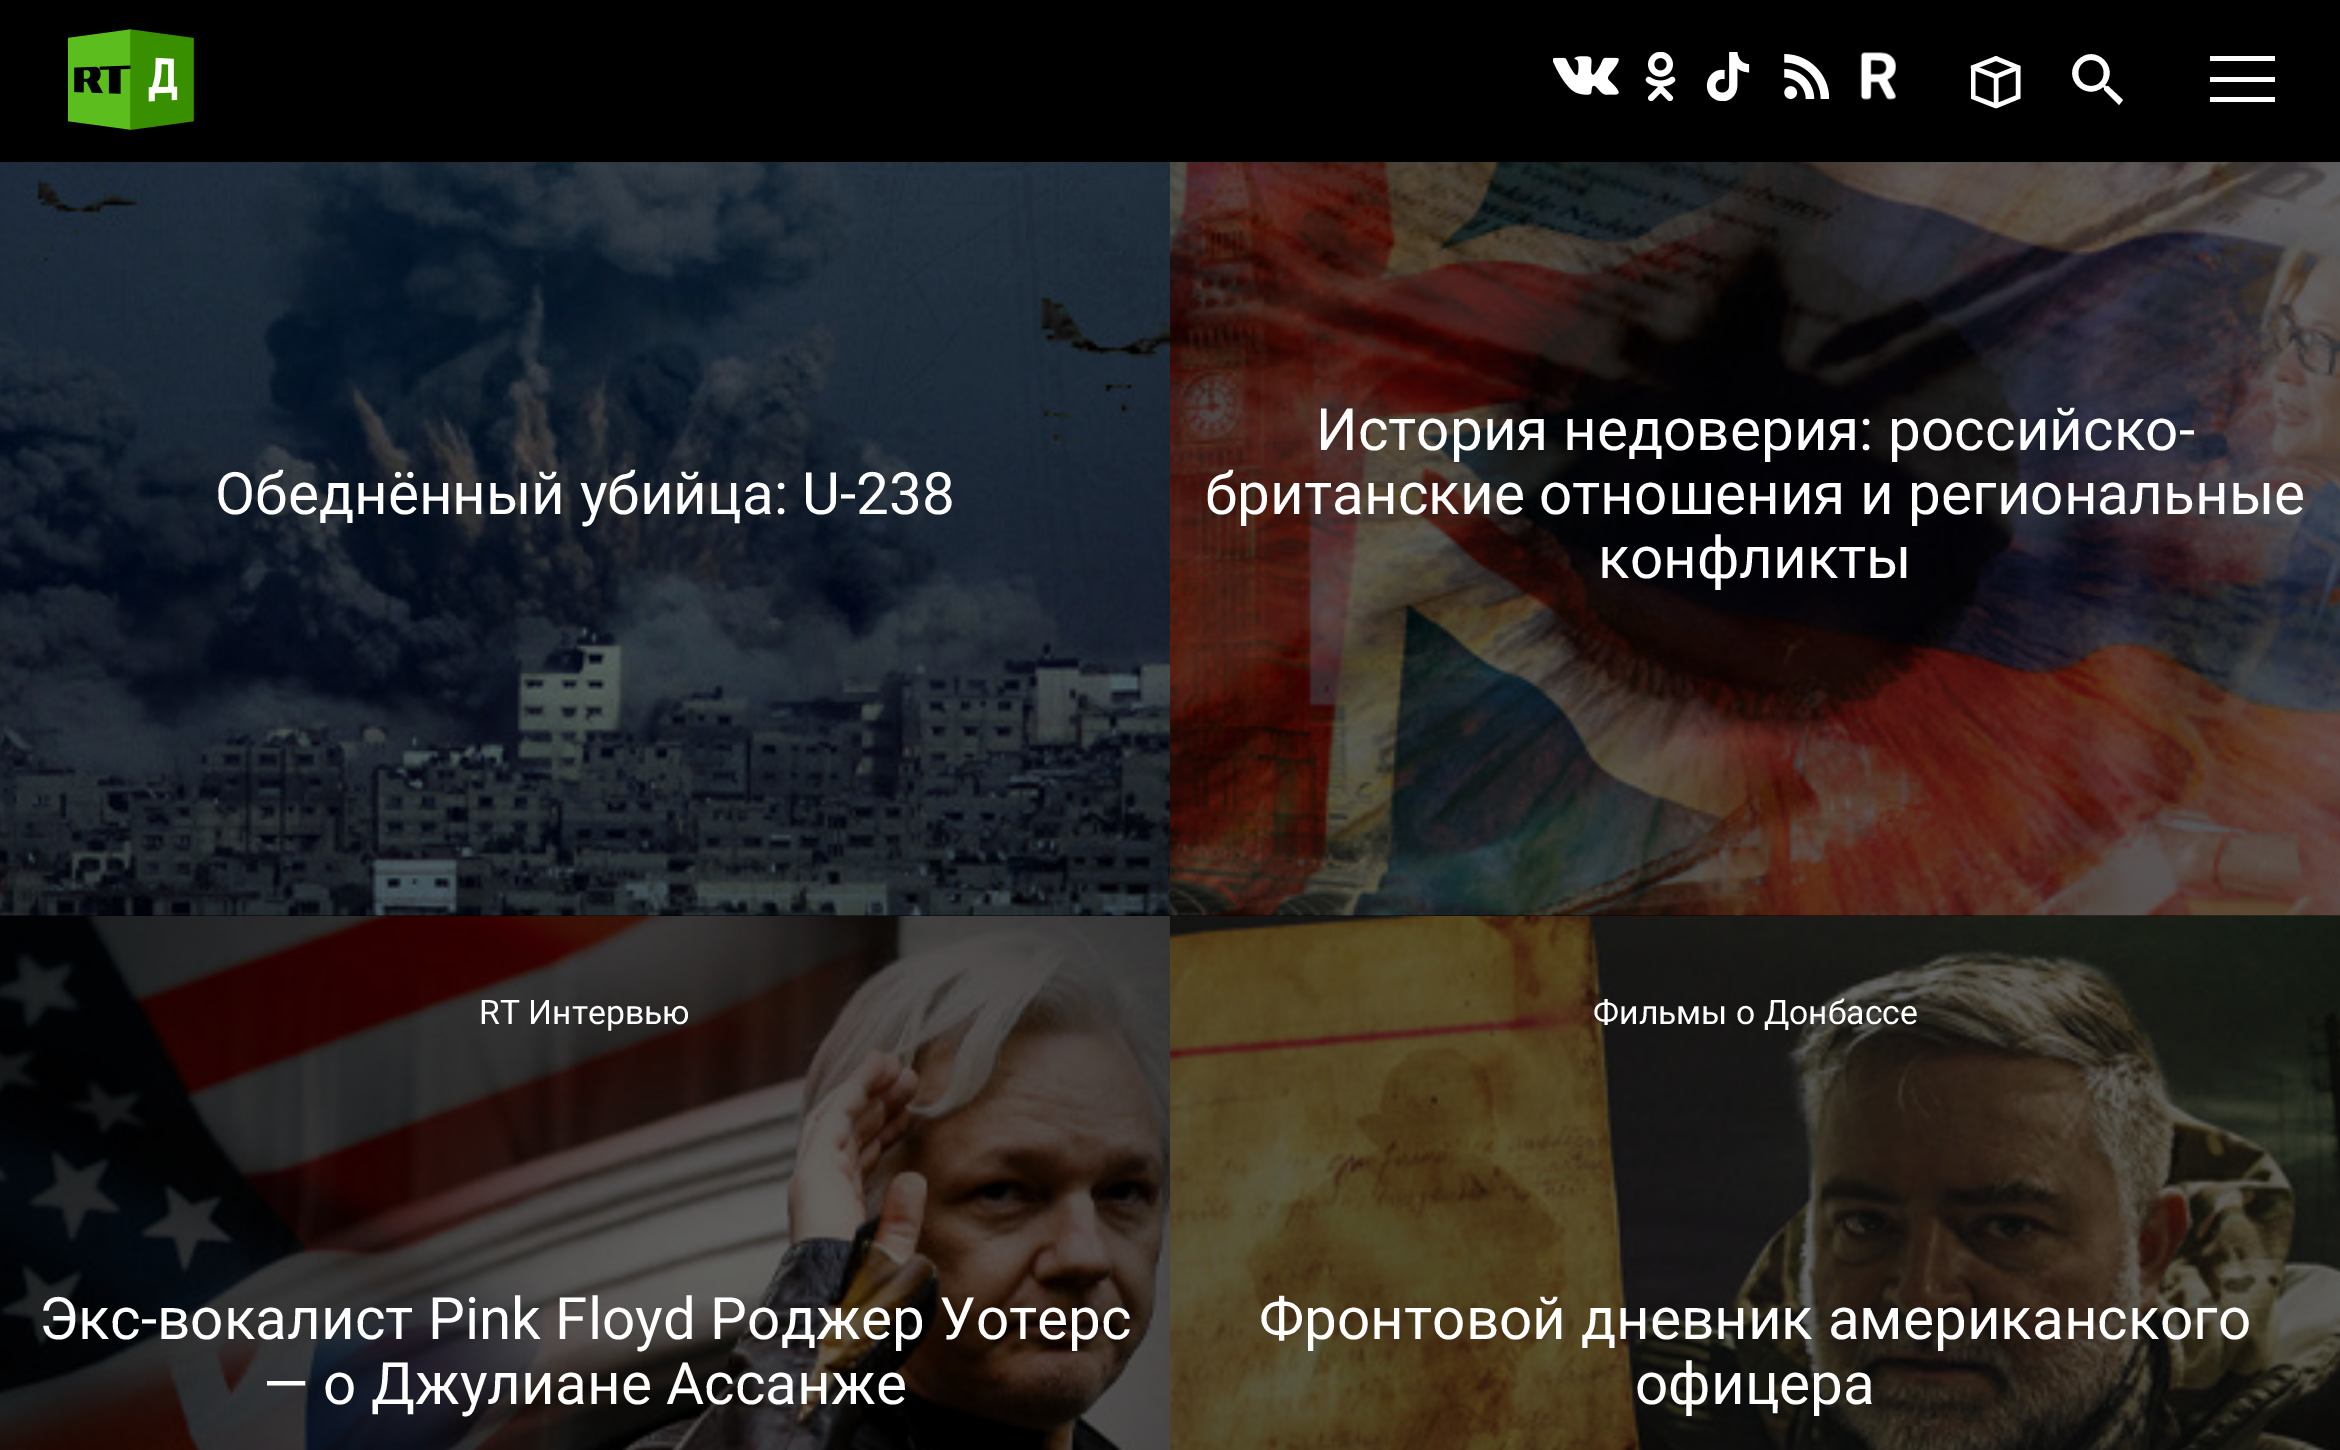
%!PS-Adobe-3.0
%%BoundingBox: 0 0 2340 1450
%%LanguageLevel: 3
%%Pages: 1
%%EndComments
%%BeginProlog
/m { moveto } bind def
/l { lineto } bind def
/c { curveto } bind def
/h { closepath } bind def
/S { stroke } bind def
/q { gsave } bind def
/Q { grestore } bind def
/w { setlinewidth } bind def
/fn { [ exch dup neg 0 0 3 -1 roll 0 0 ] selectfont } def
/tx { moveto show } def
/bx { rectfill } def
/im { 5 dict begin { /h /w /y /x /name } { exch def } forall
  gsave x y translate w h scale
  w h 8 [w 0 0 h 0 0] name (r) file false 3 colorimage grestore end } def
%%EndProlog
%%BeginSetup
<< /PageSize [2340 1450] >> setpagedevice
%%EndSetup
%%Page: 1 1
0 1450 translate 1 -1 scale
4 setmiterlimit
0 setgray
0 0 2340 1450 bx
(image0.raw) 68 29 126 101 im
(image1.raw) 1553 56 66 39 im
(image2.raw) 1645 52 31 49 im
(image3.raw) 1706 52 44 49 im
(image4.raw) 1784 54 45 45 im
(image5.raw) 1860 52 36 48 im
1 setgray
4.5 w
1 setlinecap
1973 67.5 m 1996 76.5 l 2018 67.5 l S
q
1971 56 50 52 rectclip
1996 58.5 m 1973 67.5 l 1973 97 l 1996 106 l S
Q
1996 58.5 m 2018 67.5 l 2018 97 l 1996 106 l 1996 76.5 m 1996 106 l S
2108 86 m 2123 100 l 2119 105 l 2104 90 l 2104 88 l 2103 87 l 2085 102 2061 77 2078 60 c 2095 43 2120 67 2105 85 c 2106 86 l h 2091 86 m 2108 86 2108 60 2091 60 c 2074 60 2074 86 2091 86 c h eofill
2210 97 65 5 bx
2210 77 65 5 bx
2210 56 65 5 bx
(image6.raw) 0 162 1170 754 im
/Roboto-Regular 58.5 fn
(Обеднённый убийца: U-238) 215 514 tx
(image7.raw) 1170 162 1170 754 im
(История недоверия: российско-) 1316 450 tx
(британские отношения и региональные) 1205 514 tx
(конфликты) 1598 578 tx
(image8.raw) 0 916 1170 534 im
/Roboto-Regular 33.75 fn
(RT Интервью) 479 1024 tx
/Roboto-Regular 58.5 fn
(Экс-вокалист Pink Floyd Роджер Уотерс) 39 1339 tx
(— о Джулиане Ассанже) 263 1404 tx
(image9.raw) 1170 916 1170 534 im
/Roboto-Regular 33.75 fn
(Фильмы о Донбассе) 1593 1024 tx
/Roboto-Regular 58.5 fn
(Фронтовой дневник американского) 1259 1339 tx
(офицера) 1635 1404 tx
showpage
%%EOF
